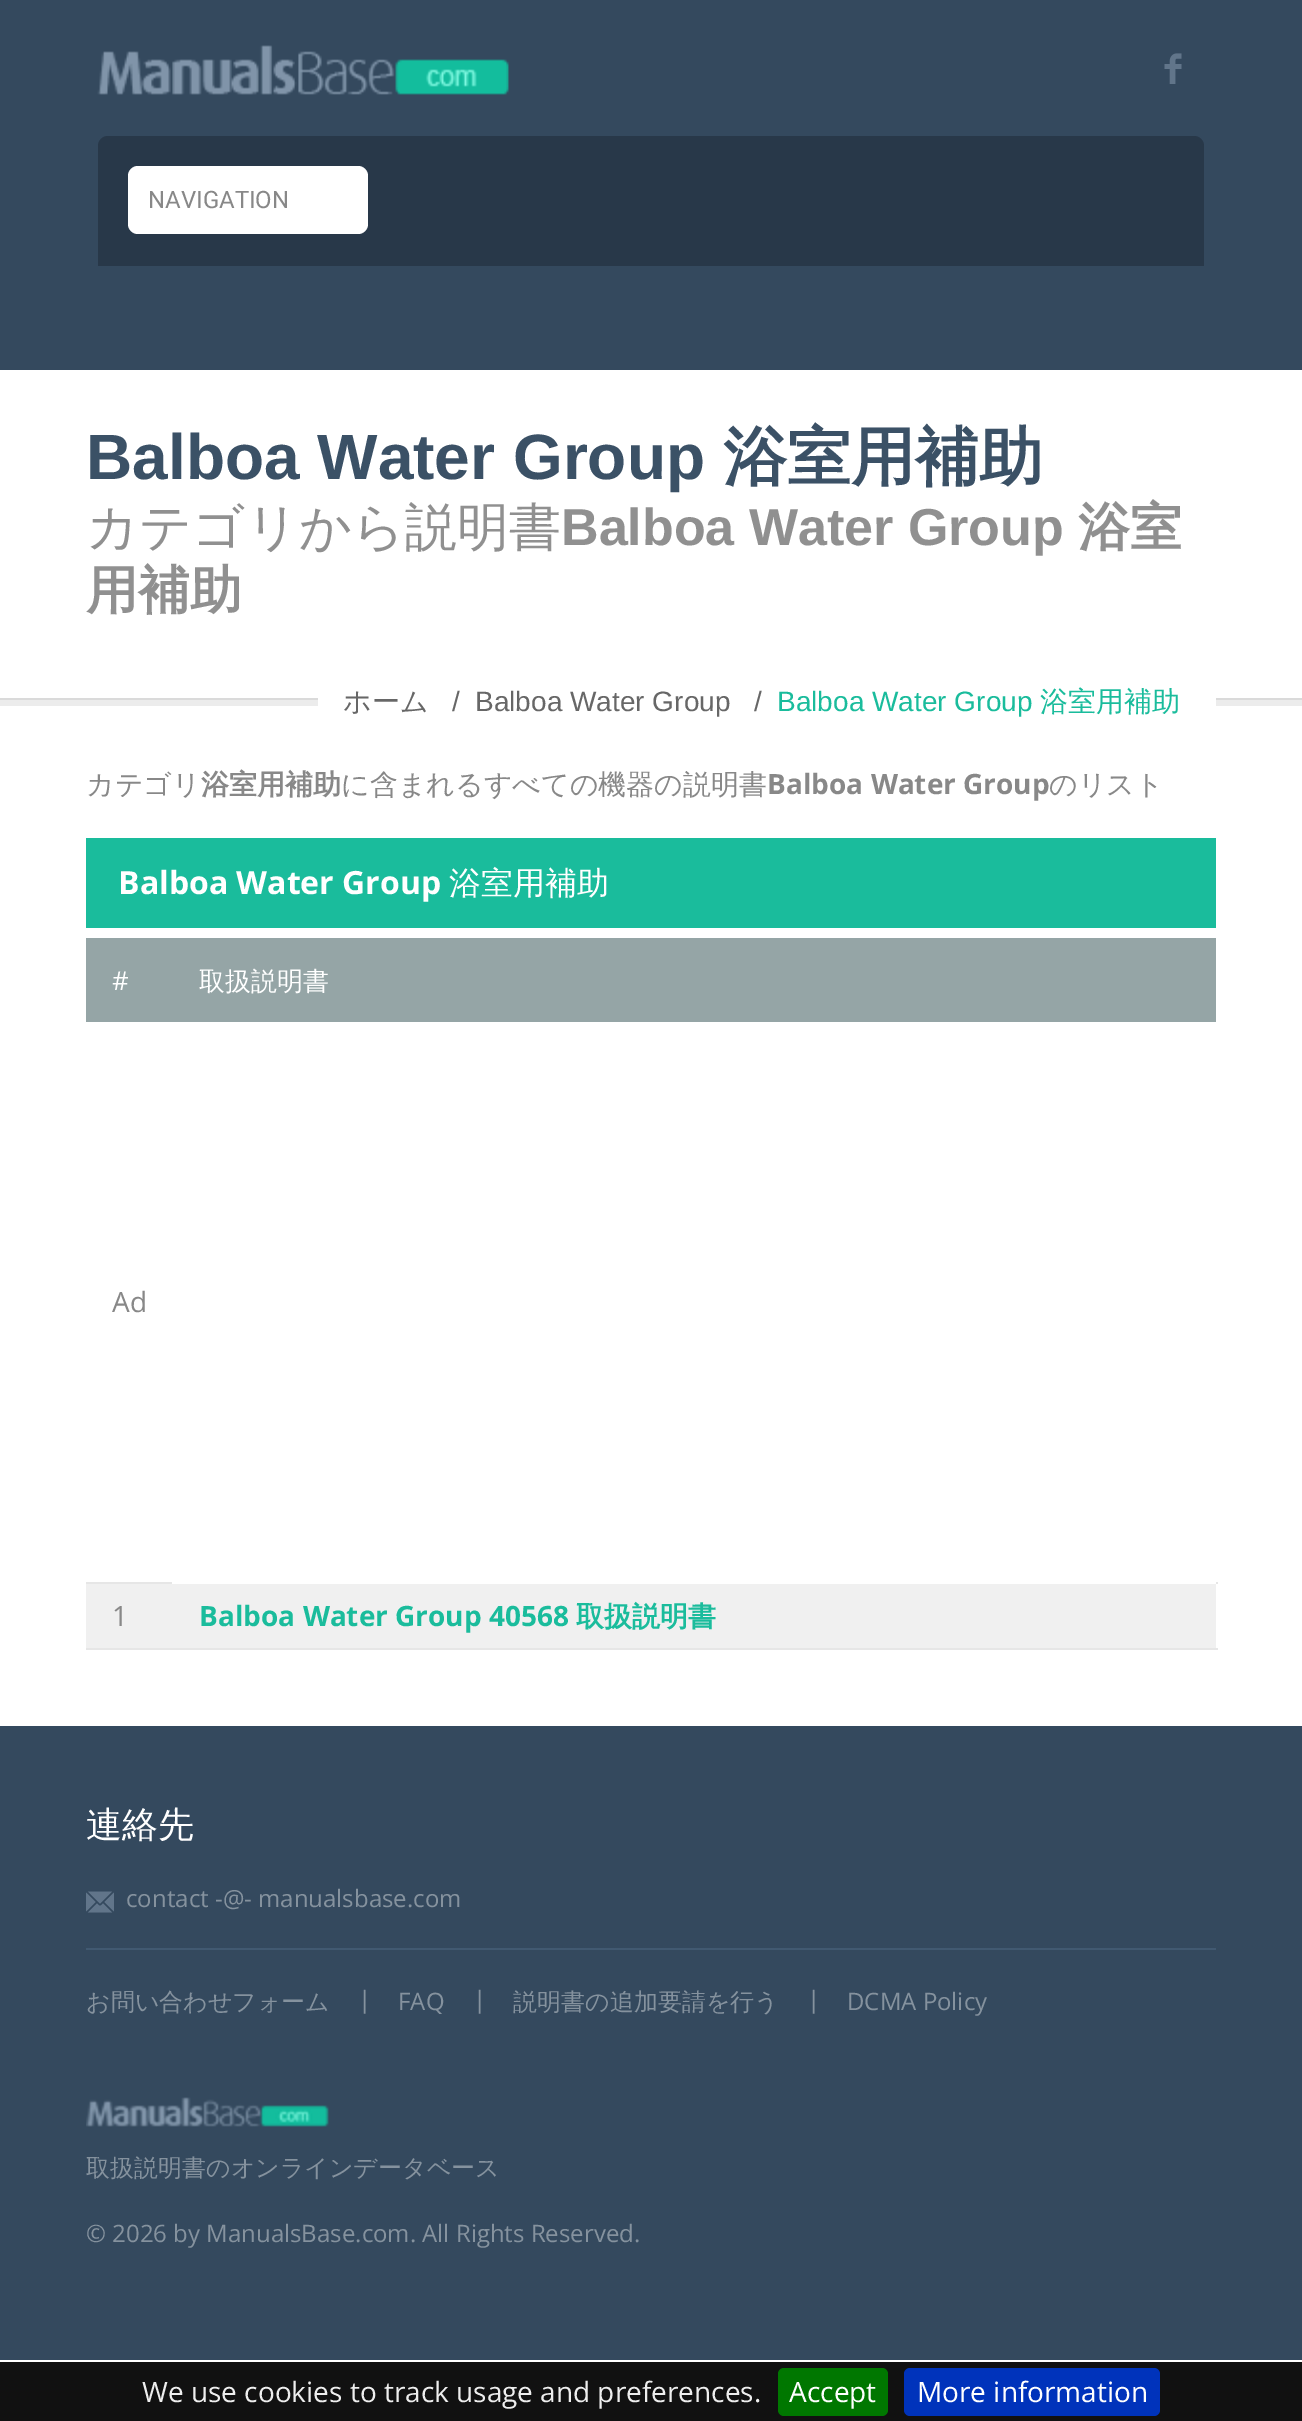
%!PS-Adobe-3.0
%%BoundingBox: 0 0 1302 2421
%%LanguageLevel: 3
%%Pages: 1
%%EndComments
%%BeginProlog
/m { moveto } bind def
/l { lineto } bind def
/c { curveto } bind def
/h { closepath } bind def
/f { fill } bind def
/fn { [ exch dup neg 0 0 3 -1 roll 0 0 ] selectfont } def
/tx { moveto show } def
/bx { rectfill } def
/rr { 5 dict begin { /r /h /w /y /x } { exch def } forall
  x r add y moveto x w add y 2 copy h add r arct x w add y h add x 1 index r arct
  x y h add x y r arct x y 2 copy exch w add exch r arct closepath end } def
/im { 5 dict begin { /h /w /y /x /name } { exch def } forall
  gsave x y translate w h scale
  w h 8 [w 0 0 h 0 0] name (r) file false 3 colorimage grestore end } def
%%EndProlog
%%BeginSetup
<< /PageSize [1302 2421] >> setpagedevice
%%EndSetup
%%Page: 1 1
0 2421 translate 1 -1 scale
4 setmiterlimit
1 setgray
0 0 1302 2421 bx
0.204 0.286 0.369 setrgbcolor
0 0 1302 370 bx
(image0.raw) 97 45 412 50 im
(image1.raw) 1164 53 18 31 im
0.157 0.22 0.286 setrgbcolor
108 136 m 1194 136 l 1199.5 136 1204 140.5 1204 146 c 1204 266 l 98 266 l 98 146 l 98 140.5 102.5 136 108 136 c h f
1 setgray
128 166 240 68 10 rr f
/Roboto-Regular 24 fn
0.533 setgray
(NAVIGATION) 148 208 tx
0.925 setgray
0 700 1302 6 bx
0.855 setgray
0 698 1302 2 bx
/LiberationSans-Bold 64 fn
0.231 0.318 0.4 setrgbcolor
(Balboa Water Group) 86 479 tx
/WenQuanYiZenHei-Bold 64 fn
(浴室用補助) 723 479 tx
/WenQuanYiZenHei-Medium 52 fn
0.565 setgray
(カテゴリから説明書) 86 545 tx
/LiberationSans-Bold 52 fn
(Balboa Water Group) 561 545 tx
/WenQuanYiZenHei-Bold 52 fn
(浴室) 1078 545 tx
(用補助) 86 608 tx
1 setgray
318 698 898 8 bx
/WenQuanYiZenHei-Medium 28 fn
0.404 setgray
(ホーム) 343 711 tx
/LiberationSans-Regular 28 fn
(/) 452 711 tx
(Balboa Water Group) 475 711 tx
(/) 754 711 tx
0.102 0.737 0.612 setrgbcolor
(Balboa Water Group) 777 711 tx
/WenQuanYiZenHei-Medium 28 fn
(浴室用補助) 1040 711 tx
0.533 setgray
(カテゴリ) 86 794 tx
/WenQuanYiZenHei-Bold 28 fn
(浴室用補助) 201 794 tx
/WenQuanYiZenHei-Medium 28 fn
(に含まれるすべての機器の説明書) 341 794 tx
/OpenSans-Bold 28 fn
(Balboa Water Group) 767 794 tx
/WenQuanYiZenHei-Medium 28 fn
(のリスト) 1049 794 tx
0.102 0.737 0.612 setrgbcolor
86 838 1130 90 bx
/OpenSans-Bold 32 fn
1 setgray
(Balboa Water Group) 118 894 tx
/WenQuanYiZenHei-Medium 32 fn
(浴室用補助) 449 894 tx
0.584 0.647 0.651 setrgbcolor
86 938 1130 84 bx
/OpenSans-Regular 26 fn
1 setgray
(#) 112 990 tx
/WenQuanYiZenHei-Medium 26 fn
(取扱説明書) 199 990 tx
0.902 setgray
86 1582 88 2 bx
/OpenSans-Regular 28 fn
0.533 setgray
(Ad) 112 1312 tx
0.902 setgray
1216 1582 2 2 bx
1 setgray
172 1582 2 2 bx
0.941 setgray
86 1584 1130 64 bx
0.533 setgray
(1) 112 1626 tx
0.902 setgray
86 1648 1132 2 bx
/OpenSans-Bold 28 fn
0.102 0.737 0.612 setrgbcolor
(Balboa Water Group 40568) 199 1626 tx
/WenQuanYiZenHei-Bold 28 fn
(取扱説明書) 576 1626 tx
0.204 0.286 0.369 setrgbcolor
0 1726 1302 634 bx
/WenQuanYiZenHei-Medium 36 fn
1 setgray
(連絡先) 86 1837 tx
0.255 0.349 0.443 setrgbcolor
86 1948 1130 2 bx
(image2.raw) 86 1891 28 22 im
/OpenSans-Regular 24 fn
0.522 0.573 0.62 setrgbcolor
(contact -@- manualsbase.com) 126 1907 tx
/WenQuanYiZenHei-Medium 24 fn
(お問い合わせフォーム) 86 2010 tx
/OpenSans-Regular 24 fn
(|) 358 2008 tx
(FAQ) 398 2010 tx
(|) 473 2008 tx
/WenQuanYiZenHei-Medium 24 fn
(説明書の追加要請を行う) 513 2010 tx
/OpenSans-Regular 24 fn
(|) 807 2008 tx
(DCMA Policy) 847 2010 tx
(image3.raw) 86 2097 243 30 im
/WenQuanYiZenHei-Medium 24 fn
(取扱説明書のオンラインデータベース) 86 2176 tx
/OpenSans-Regular 24 fn
(© 2026 by ManualsBase.com. All Rights Reserved.) 86 2242 tx
0.067 setgray
0 2362 1302 59 bx
/OpenSans-Regular 28 fn
0.933 setgray
(We use cookies to track usage and preferences.) 142 2402 tx
0 0.467 0 setrgbcolor
778 2368 110 48 6 rr f
1 setgray
(Accept) 789 2402 tx
0 0.2 0.733 setrgbcolor
904 2368 256 48 6 rr f
1 setgray
(More information) 917 2402 tx
showpage
%%EOF
